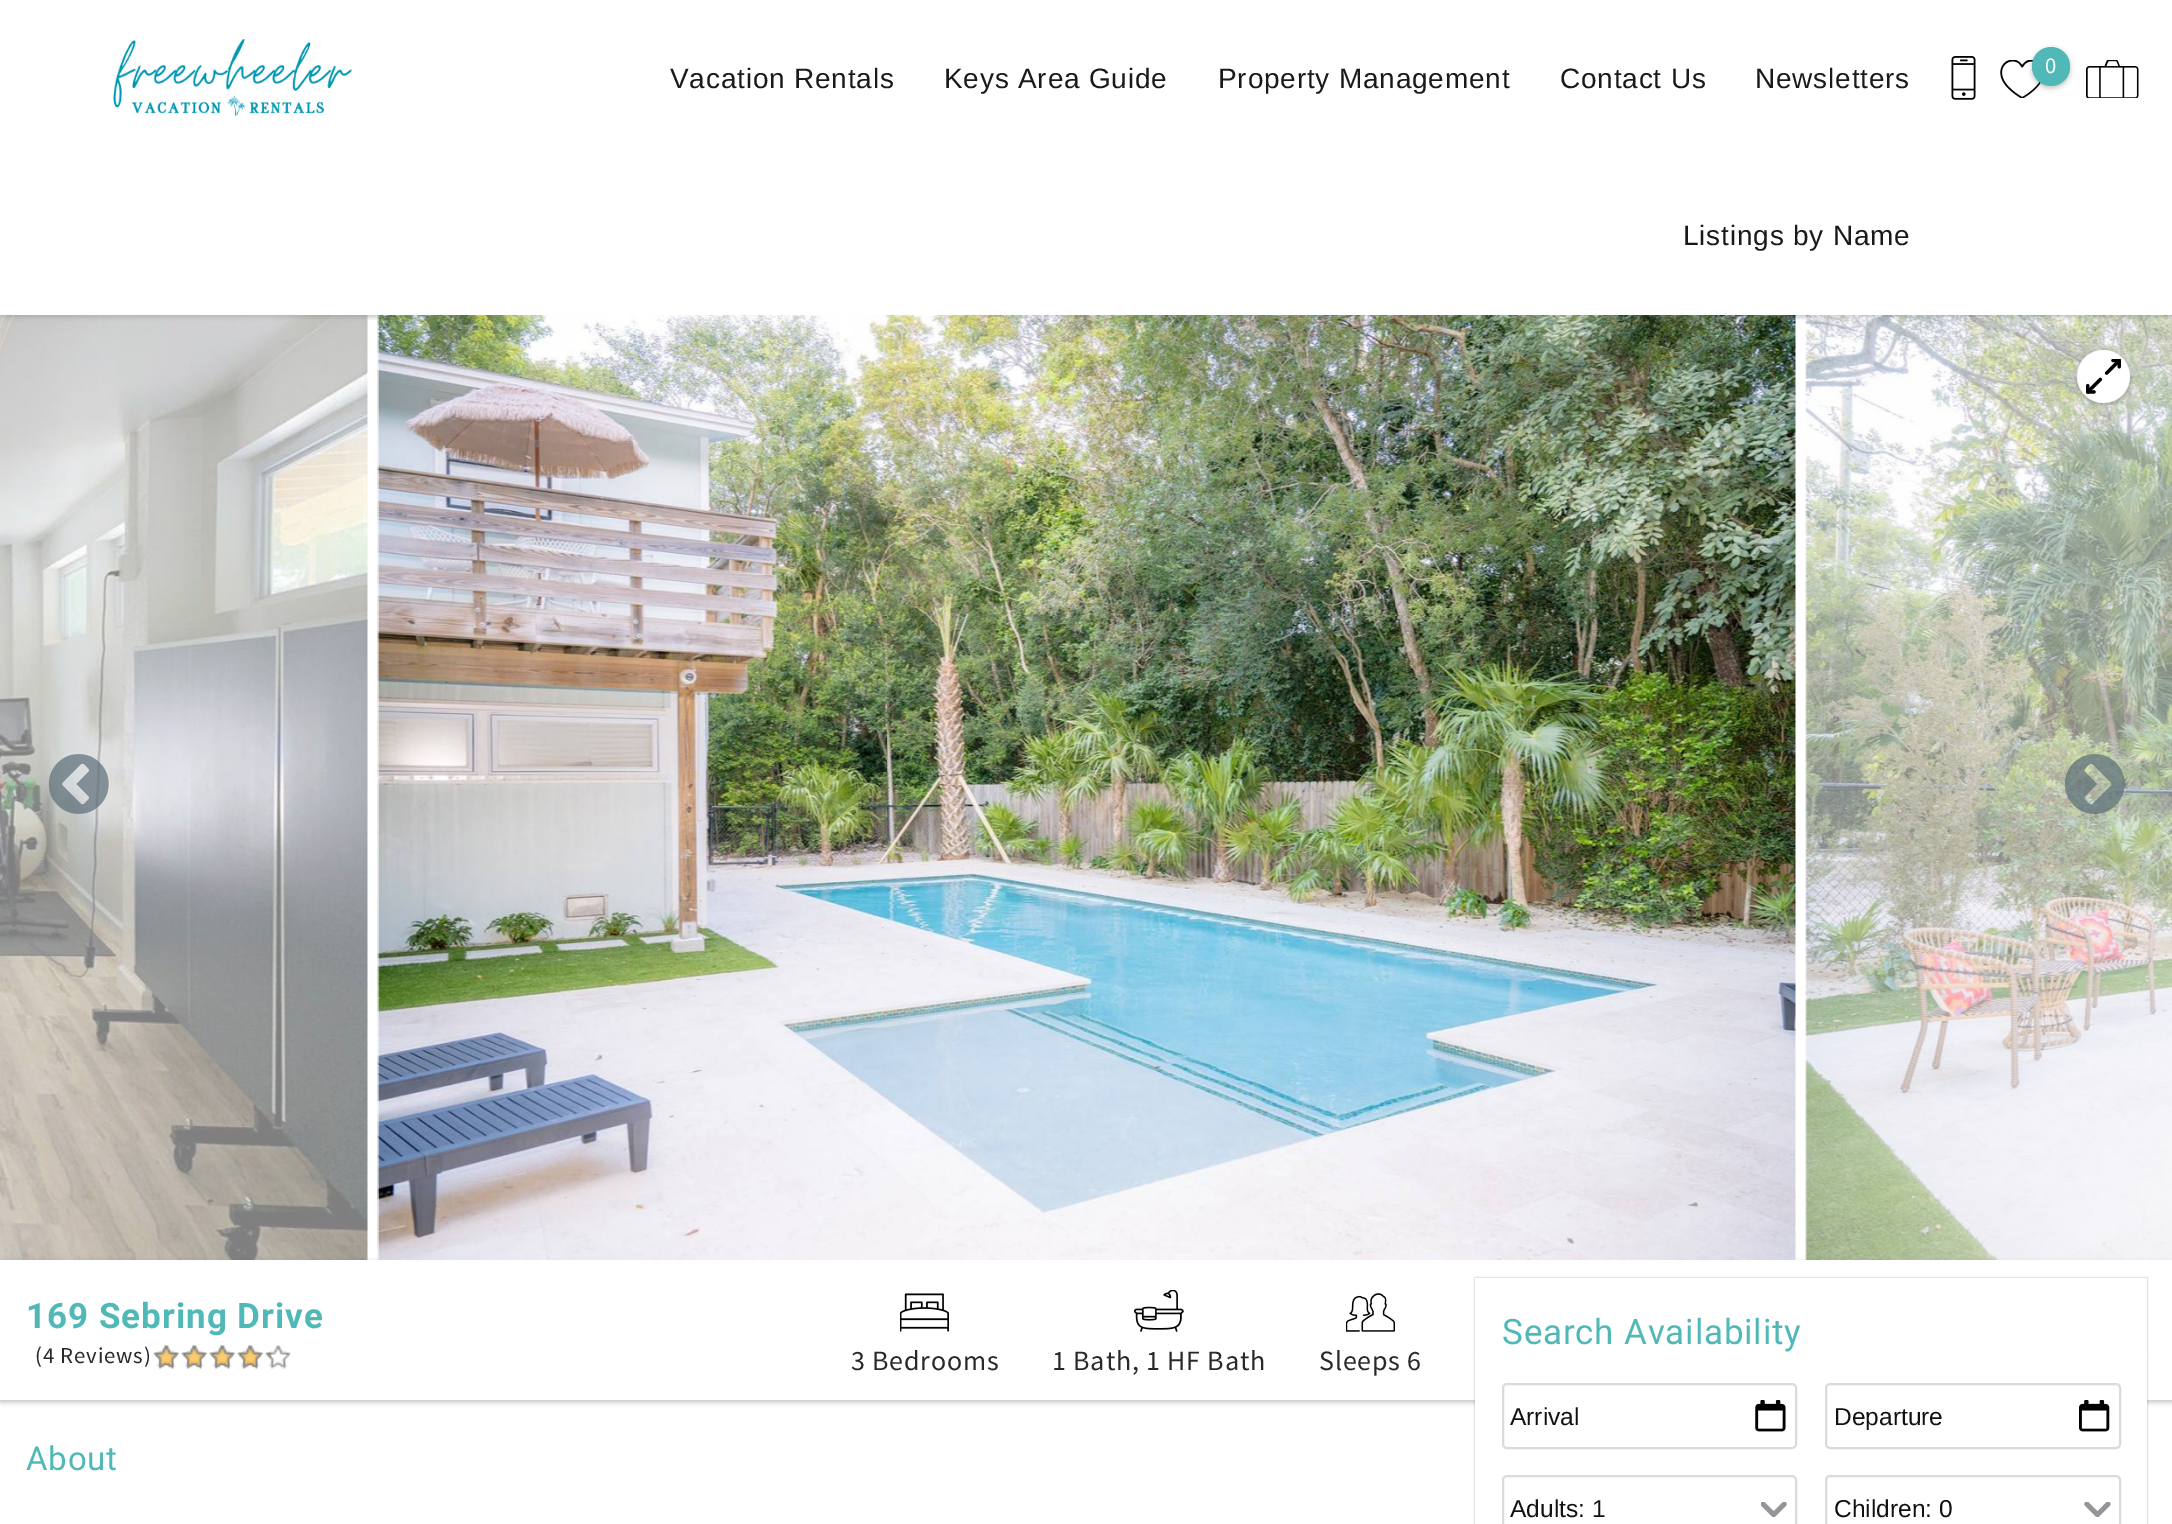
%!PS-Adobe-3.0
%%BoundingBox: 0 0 2172 1524
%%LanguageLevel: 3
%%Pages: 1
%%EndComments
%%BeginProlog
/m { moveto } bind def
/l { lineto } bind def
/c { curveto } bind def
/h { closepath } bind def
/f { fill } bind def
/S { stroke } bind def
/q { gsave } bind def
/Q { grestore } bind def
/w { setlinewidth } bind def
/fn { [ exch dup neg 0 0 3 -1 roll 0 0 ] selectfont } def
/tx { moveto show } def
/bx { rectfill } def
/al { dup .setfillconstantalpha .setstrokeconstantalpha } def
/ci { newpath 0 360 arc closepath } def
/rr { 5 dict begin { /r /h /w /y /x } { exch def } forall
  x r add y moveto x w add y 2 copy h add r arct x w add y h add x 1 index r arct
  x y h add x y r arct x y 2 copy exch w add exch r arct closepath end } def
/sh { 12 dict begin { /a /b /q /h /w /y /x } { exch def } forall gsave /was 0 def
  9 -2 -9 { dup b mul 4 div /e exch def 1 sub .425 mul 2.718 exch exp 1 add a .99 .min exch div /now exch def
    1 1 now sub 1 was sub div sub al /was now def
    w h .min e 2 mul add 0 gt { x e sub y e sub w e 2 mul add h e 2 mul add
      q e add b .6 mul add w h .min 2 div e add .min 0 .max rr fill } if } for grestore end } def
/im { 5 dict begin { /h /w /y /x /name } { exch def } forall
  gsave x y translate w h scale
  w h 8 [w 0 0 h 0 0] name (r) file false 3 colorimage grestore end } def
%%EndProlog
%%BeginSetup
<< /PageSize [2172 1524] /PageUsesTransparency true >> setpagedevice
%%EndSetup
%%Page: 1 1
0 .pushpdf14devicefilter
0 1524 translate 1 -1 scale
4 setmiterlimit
1 setgray
0 0 2172 1524 bx
q
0 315 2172 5 rectclip
0.067 setgray
0 2 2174 315 0 2.5 0.25 sh
Q
(image0.raw) 113 39 239 78 im
/LiberationSans-Regular 28 fn
0.102 setgray
670 88 m 0.8 0 (Vacation Rentals) ashow
944 88 m 0.8 0 (Keys Area Guide) ashow
1218 88 m 0.8 0 (Property Management) ashow
1560 88 m 0.8 0 (Contact Us) ashow
1755 88 m 0.8 0 (Newsletters) ashow
1683 245 m 0.8 0 (Listings by Name) ashow
(image1.raw) 1951 56 25 44 im
(image2.raw) 2000 60 41 38 im
0.067 setgray
2032 49 38 39 19 2.5 0.25 sh
0.318 0.722 0.722 setrgbcolor
2032 47 38 39 19 rr f
/SourceSansPro-Regular 22.75 fn
1 setgray
2045 73 m 0.8 0 (0) ashow
(image3.raw) 2086 60 53 38 im
q
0 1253 m 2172 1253 l 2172 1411 l 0 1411 l h 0 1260 m 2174 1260 l 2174 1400 l 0 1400 l h eoclip newpath
0.067 setgray
0 1262 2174 140 0 2.5 0.25 sh
Q
(image4.raw) 0 315 368 945 im
(image5.raw) 377 315 1419 945 im
(image6.raw) 1805 315 367 945 im
(image7.raw) 48 754 61 60 im
(image8.raw) 2064 754 61 60 im
2103.5 376.5 26.5 ci f
q
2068 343 m 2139 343 l 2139 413 l 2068 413 l h 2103.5 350 m 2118 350 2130 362 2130 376.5 c 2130 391 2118 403 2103.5 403 c 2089 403 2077 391 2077 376.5 c 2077 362 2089 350 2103.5 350 c h eoclip newpath
0.067 setgray
2077 352 53 52 26 2.5 0.25 sh
Q
0.7 al
2103.5 376.5 26.5 ci f
1 al
(image9.raw) 2086 359 35 35 im
/Roboto-Bold 35 fn
0.318 0.722 0.722 setrgbcolor
26 1328 m 1 0 (169 Sebring Drive) ashow
/SourceSansPro-Regular 22.75 fn
0.161 setgray
35 1363 m 0.8 0 (\(4 Reviews\)) ashow
(image10.raw) 153 1345 26 24 im
(image11.raw) 153 1345 26 24 im
(image10.raw) 181 1345 26 24 im
(image11.raw) 181 1345 26 24 im
(image12.raw) 209 1345 26 24 im
(image13.raw) 209 1345 26 24 im
(image12.raw) 237 1345 26 24 im
(image13.raw) 237 1345 26 24 im
(image12.raw) 265 1345 26 24 im
(image14.raw) 265 1351 7 16 im
(image15.raw) 900 1293 49 39 im
/SourceSansPro-Regular 28 fn
851 1370 m 0.8 0 (3 Bedrooms) ashow
(image16.raw) 1134 1290 50 42 im
1052 1370 m 0.8 0 (1 Bath, 1 HF Bath) ashow
(image17.raw) 1346 1293 49 39 im
1319 1370 m 0.8 0 (Sleeps 6) ashow
/Roboto-Regular 33 fn
0.318 0.722 0.722 setrgbcolor
26 1470 m 0.8 0 (About) ashow
0.067 setgray
1475 1278 672 78 0 1 0.35 sh
1 setgray
1475 1278 672 78 bx
/Roboto-Regular 35 fn
0.318 0.722 0.722 setrgbcolor
1502 1344 m 0.8 0 (Search Availability) ashow
0.067 setgray
1475 1358 672 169 0 1 0.35 sh
1 setgray
1475 1356 672 168 bx
(image18.raw) 1755 1400 31 32 im
0.859 setgray
2 w
1503 1384 293 64 4 rr S
/LiberationSans-Regular 24.5 fn
0.067 setgray
(Arrival) 1510 1425 tx
(image19.raw) 2079 1400 31 32 im
0.859 setgray
1826 1384 294 64 4 rr S
0.067 setgray
(Departure) 1834 1425 tx
(image20.raw) 1761 1502 26 15 im
0.859 setgray
1503 1476 293 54 4 rr S
0.067 setgray
(Adults: 1) 1510 1517 tx
(image21.raw) 2084 1502 27 15 im
0.859 setgray
1826 1476 294 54 4 rr S
0.067 setgray
(Children: 0) 1834 1517 tx
.poppdf14devicefilter showpage
%%EOF
